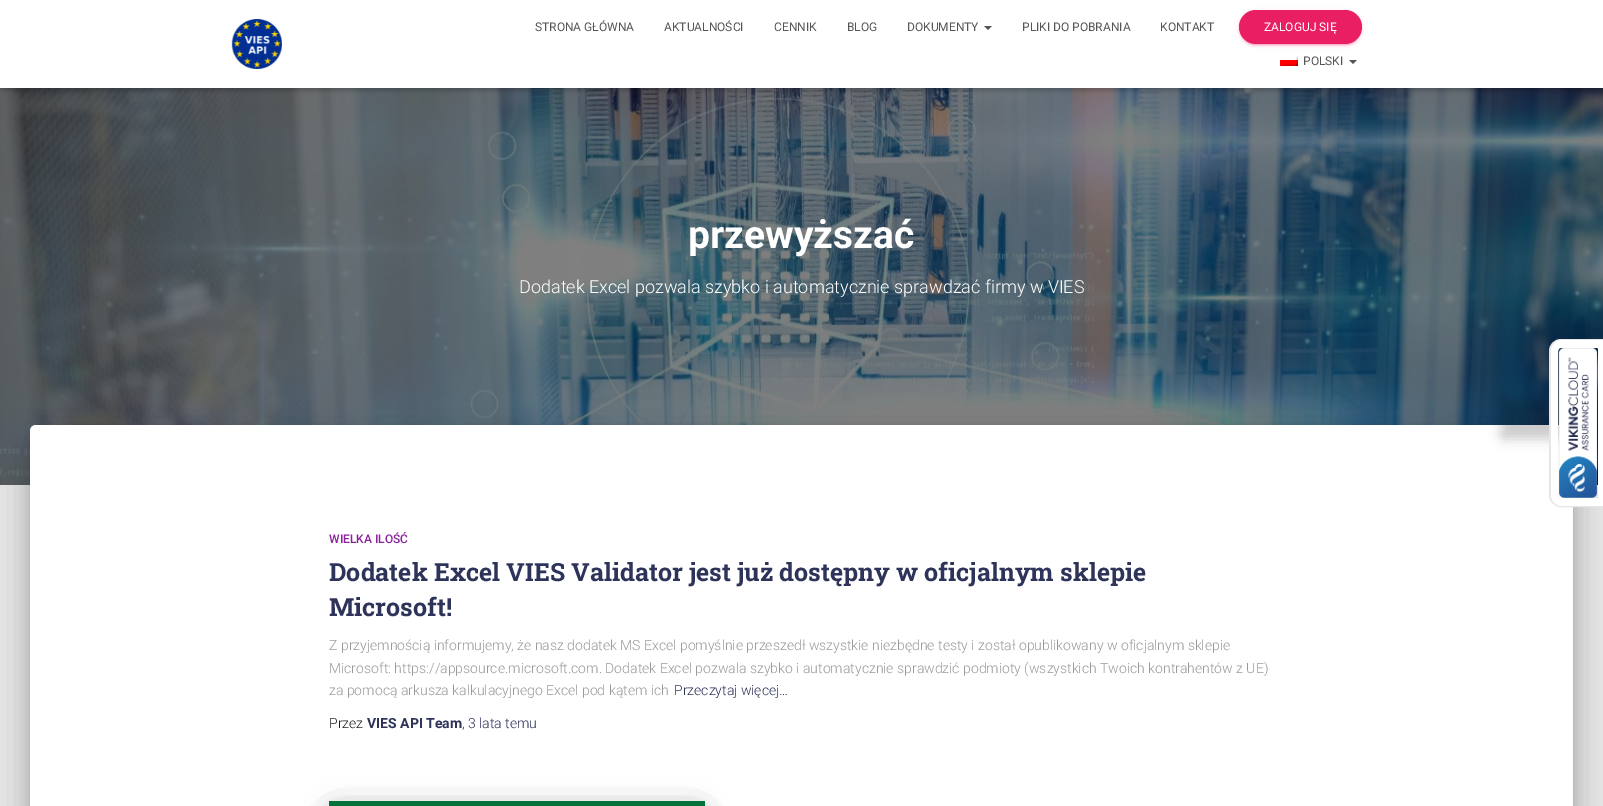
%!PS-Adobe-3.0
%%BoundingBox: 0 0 1603 806
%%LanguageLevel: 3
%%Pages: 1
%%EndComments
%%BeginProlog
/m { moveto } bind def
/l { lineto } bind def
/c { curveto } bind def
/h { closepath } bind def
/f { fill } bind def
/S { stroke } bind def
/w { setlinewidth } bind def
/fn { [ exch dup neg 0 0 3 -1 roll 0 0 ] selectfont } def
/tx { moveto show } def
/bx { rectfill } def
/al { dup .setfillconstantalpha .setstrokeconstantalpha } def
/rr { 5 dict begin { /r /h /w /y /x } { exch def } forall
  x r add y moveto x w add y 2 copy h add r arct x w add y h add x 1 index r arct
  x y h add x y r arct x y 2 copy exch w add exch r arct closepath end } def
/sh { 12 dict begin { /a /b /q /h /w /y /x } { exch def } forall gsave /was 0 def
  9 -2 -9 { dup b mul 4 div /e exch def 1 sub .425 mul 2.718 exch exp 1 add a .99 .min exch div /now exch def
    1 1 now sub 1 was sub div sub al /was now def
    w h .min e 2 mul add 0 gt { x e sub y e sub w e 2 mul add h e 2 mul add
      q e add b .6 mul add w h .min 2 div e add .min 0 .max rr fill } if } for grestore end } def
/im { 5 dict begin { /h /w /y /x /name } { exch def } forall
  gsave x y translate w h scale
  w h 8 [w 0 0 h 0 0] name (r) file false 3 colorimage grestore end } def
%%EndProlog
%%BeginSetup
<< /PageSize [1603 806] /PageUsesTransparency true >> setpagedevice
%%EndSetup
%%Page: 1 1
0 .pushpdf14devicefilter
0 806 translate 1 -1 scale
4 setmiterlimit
0.898 setgray
0 0 1603 806 bx
(image2.raw) 0 88 1603 397 im
0 setgray
2 6 1599 84 0 2.5 0.1 sh
0 1 1603 88 0 5 0.12 sh
6 7 1591 76 0 5 0.42 sh
1 setgray
0 0 1603 88 bx
(image0.raw) 231 19 51 50 im
/Roboto-Regular 12 fn
0.333 setgray
(STRONA GŁÓWNA) 535 31 tx
(AKTUALNOŚCI) 664 31 tx
(CENNIK) 774 31 tx
(BLOG) 847 31 tx
(DOKUMENTY) 907 31 tx
984 26 m 992 26 l 988 30 l h f
(PLIKI DO POBRANIA) 1022 31 tx
(KONTAKT) 1160 31 tx
0.914 0.118 0.388 setrgbcolor
1239 11 123 34 17 2.5 0.12 sh
1241 15 119 30 15 0.5 0.2 sh
1239 12 123 34 17 1 0.14 sh
1239 10 123 34 17 rr f
1 setgray
(ZALOGUJ SIĘ) 1264 31 tx
(image1.raw) 1280 56 18 10 im
0.333 setgray
(POLSKI) 1303 65 tx
1349 60 m 1357 60 l 1353 64 l h f
/Roboto-Bold 39 fn
1 setgray
(przewyższać) 688 248 tx
/Roboto-Light 18 fn
(Dodatek Excel pozwala szybko i automatycznie sprawdzać firmy w VIES) 519 293 tx
0 setgray
35 438 1533 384 1 5 0.2 sh
25 426 1553 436 11 15 0.12 sh
28 439 1547 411 8 12 0.14 sh
1 setgray
36 425 m 1567 425 l 1570.5 425 1573 427.5 1573 431 c 1573 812 l 30 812 l 30 431 l 30 427.5 32.5 425 36 425 c h f
/Roboto-Medium 12 fn
0.537 0.133 0.608 setrgbcolor
(WIELKA ILOŚĆ) 329 543 tx
/RobotoSlab-Bold 25 fn
0.176 0.2 0.349 setrgbcolor
(Dodatek Excel VIES Validator jest już dostępny w oficjalnym sklepie) 329 581 tx
(Microsoft!) 329 616 tx
/Roboto-Light 14 fn
0.6 setgray
(Z przyjemnością informujemy, że nasz dodatek MS Excel pomyślnie przeszedł wszystkie niezbędne testy i został opublikowany w oficjalnym sklepie) 329 650 tx
(Microsoft: https://appsource.microsoft.com. Dodatek Excel pozwala szybko i automatycznie sprawdzić podmioty \(wszystkich Twoich kontrahentów z UE\)) 329 673 tx
(za pomocą arkusza kalkulacyjnego Excel pod kątem ich) 329 695 tx
0.176 0.2 0.349 setrgbcolor
(Przeczytaj więcej…) 674 695 tx
0.129 setgray
(Przez) 329 728 tx
/Roboto-Bold 14 fn
0.176 0.2 0.349 setrgbcolor
(VIES API Team) 367 728 tx
/Roboto-Light 14 fn
0.129 setgray
(,) 462 728 tx
0.176 0.2 0.349 setrgbcolor
(3 lata temu) 468 728 tx
0 setgray
329 805 376 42 3 12.5 0.12 sh
341 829 352 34 0 19 0.56 sh
0.004 0.447 0.227 setrgbcolor
329 801 376 5 bx
0 setgray
1501 399 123 40 3 6 0.2 sh
0.902 setgray
9 w
1553.5 495 m 1553.5 351 l 1553.5 347 1557 343.5 1561 343.5 c 1602.5 343.5 l 1602.5 502.5 l 1561 502.5 l 1557 502.5 1553.5 499 1553.5 495 c h S
1 setgray
1551 495 m 1551 501 1556 506 1562 506 c 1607 506 l 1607 340 l 1562 340 l 1556 340 1551 345 1551 351 c h 1558 495 m 1558 497 1559 498 1561 498 c 1598 498 l 1598 348 l 1561 348 l 1559 348 1558 349 1558 351 c h eofill
(image3.raw) 1559 348 38 150 im
.poppdf14devicefilter showpage
%%EOF
